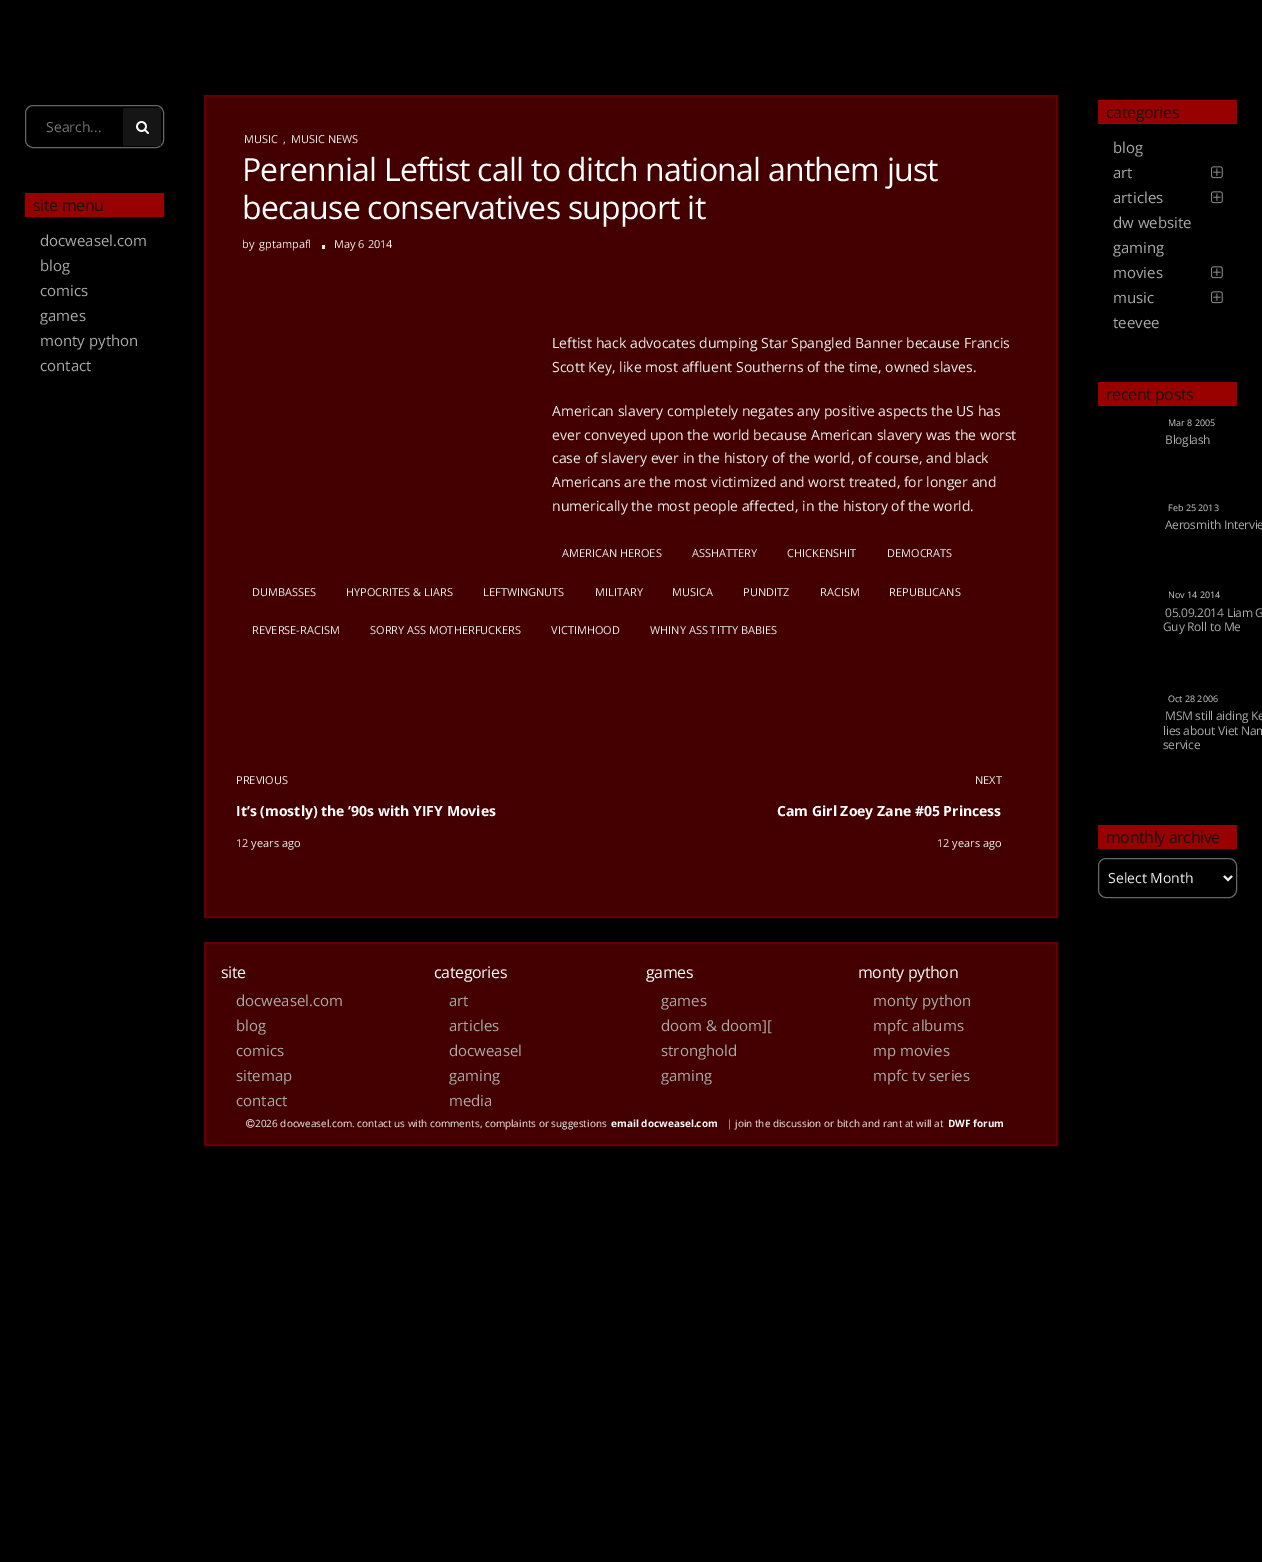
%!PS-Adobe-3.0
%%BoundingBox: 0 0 1262 1562
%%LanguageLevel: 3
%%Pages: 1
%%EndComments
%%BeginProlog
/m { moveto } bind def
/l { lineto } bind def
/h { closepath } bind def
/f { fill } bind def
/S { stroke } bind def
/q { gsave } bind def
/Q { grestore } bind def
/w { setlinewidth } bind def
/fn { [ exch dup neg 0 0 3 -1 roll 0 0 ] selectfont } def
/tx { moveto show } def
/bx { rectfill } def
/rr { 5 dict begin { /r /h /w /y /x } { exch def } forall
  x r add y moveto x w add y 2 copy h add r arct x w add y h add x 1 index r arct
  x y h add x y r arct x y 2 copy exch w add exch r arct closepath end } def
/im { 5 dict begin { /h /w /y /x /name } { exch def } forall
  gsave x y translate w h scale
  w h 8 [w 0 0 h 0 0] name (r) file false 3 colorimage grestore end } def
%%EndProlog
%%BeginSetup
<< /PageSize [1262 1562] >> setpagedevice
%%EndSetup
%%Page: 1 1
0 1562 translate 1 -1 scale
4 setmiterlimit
0 setgray
0 0 1262 1562 bx
0.4 setgray
25.5 105.5 138 42 7.5 rr S
/OpenSans-Regular 14 fn
0.459 setgray
(Search...) 46 132 tx
0.082 setgray
123 108 38 38 bx
(image0.raw) 136 121 13 13 im
0.6 0 0 setrgbcolor
25 193 139 24 bx
/OpenSans-Regular 16 fn
0.082 setgray
33 211 m -0.4 0 (site menu) ashow
/OpenSans-Regular 15 fn
0.667 setgray
(docweasel.com) 40 246 tx
(blog) 40 271 tx
(comics) 40 296 tx
(games) 40 321 tx
(monty python) 40 346 tx
(contact) 40 371 tx
0.267 0 0 setrgbcolor
205 96 m 1057 96 l 1057 917 l 205 917 l h q f Q
0.4 0 0 setrgbcolor
2 w
S
/OpenSans-Regular 11 fn
0.933 setgray
(MUSIC) 244 143 tx
(,) 283 143 tx
(MUSIC NEWS) 291 143 tx
/OpenSans-Regular 32 fn
1 setgray
242 181 m -0.8 0 (Perennial Leftist call to ditch national anthem just) ashow
242 219 m -0.8 0 (because conservatives support it) ashow
/OpenSans-Regular 11 fn
0.933 setgray
(by) 242 248 tx
(gptampafl) 259 248 tx
322 245 3 4 bx
(May 6 2014) 334 248 tx
/OpenSans-Regular 14 fn
(Leftist hack advocates dumping Star Spangled Banner because Francis) 552 348 tx
(Scott Key, like most affluent Southerns of the time, owned slaves.) 552 372 tx
(American slavery completely negates any positive aspects the US has) 552 416 tx
(ever conveyed upon the world because American slavery was the worst) 552 440 tx
(case of slavery ever in the history of the world, of course, and black) 552 463 tx
(Americans are the most victimized and worst treated, for longer and) 552 487 tx
(numerically the most people affected, in the history of the world.) 552 511 tx
/OpenSans-Regular 11 fn
(AMERICAN HEROES) 562 557 tx
(ASSHATTERY) 692 557 tx
(CHICKENSHIT) 787 557 tx
(DEMOCRATS) 887 557 tx
(DUMBASSES) 252 596 tx
(HYPOCRITES & LIARS) 346 596 tx
(LEFTWINGNUTS) 483 596 tx
(MILITARY) 595 596 tx
(MUSICA) 672 596 tx
(PUNDITZ) 743 596 tx
(RACISM) 820 596 tx
(REPUBLICANS) 889 596 tx
(REVERSE-RACISM) 252 634 tx
(SORRY ASS MOTHERFUCKERS) 370 634 tx
(VICTIMHOOD) 551 634 tx
(WHINY ASS TITTY BABIES) 650 634 tx
(PREVIOUS) 236 784 tx
/OpenSans-Bold 14 fn
1 setgray
(It’s \(mostly\) the ’90s with YIFY Movies) 236 816 tx
/OpenSans-Regular 11 fn
0.933 setgray
(12 years ago) 236 847 tx
(NEXT) 975 784 tx
/OpenSans-Bold 14 fn
1 setgray
(Cam Girl Zoey Zane #05 Princess) 777 816 tx
/OpenSans-Regular 11 fn
0.933 setgray
(12 years ago) 937 847 tx
0.267 0 0 setrgbcolor
205 943 m 1057 943 l 1057 1145 l 205 1145 l h q f Q
0.4 0 0 setrgbcolor
S
/OpenSans-Regular 16 fn
1 setgray
221 978 m -0.4 0 (site) ashow
/OpenSans-Regular 15 fn
0.667 setgray
(docweasel.com) 236 1006 tx
(blog) 236 1031 tx
(comics) 236 1056 tx
(sitemap) 236 1081 tx
(contact) 236 1106 tx
/OpenSans-Regular 16 fn
1 setgray
434 978 m -0.4 0 (categories) ashow
/OpenSans-Regular 15 fn
0.667 setgray
(art) 449 1006 tx
(articles) 449 1031 tx
(docweasel) 449 1056 tx
(gaming) 449 1081 tx
(media) 449 1106 tx
/OpenSans-Regular 16 fn
1 setgray
646 978 m -0.4 0 (games) ashow
/OpenSans-Regular 15 fn
0.667 setgray
(games) 661 1006 tx
(doom & doom][) 661 1031 tx
(stronghold) 661 1056 tx
(gaming) 661 1081 tx
/OpenSans-Regular 16 fn
1 setgray
858 978 m -0.4 0 (monty python) ashow
/OpenSans-Regular 15 fn
0.667 setgray
(monty python) 873 1006 tx
(mpfc albums) 873 1031 tx
(mp movies) 873 1056 tx
(mpfc tv series) 873 1081 tx
(image1.raw) 246 1119 9 9 im
/OpenSans-Regular 10 fn
0.933 setgray
(2026 docweasel.com. contact us with comments, complaints or suggestions) 255 1127 tx
/OpenSans-Bold 10 fn
1 setgray
(email docweasel.com) 611 1127 tx
/OpenSans-Regular 10 fn
0.933 setgray
(| join the discussion or bitch and rant at will at) 727 1127 tx
/OpenSans-Bold 10 fn
1 setgray
(DWF forum) 948 1127 tx
0.6 0 0 setrgbcolor
1098 100 139 24 bx
/OpenSans-Regular 16 fn
0.082 setgray
1106 118 m -0.4 0 (categories) ashow
/OpenSans-Regular 15 fn
0.667 setgray
(blog) 1113 153 tx
(art) 1113 178 tx
(image2.raw) 1211 166 12 13 im
(articles) 1113 203 tx
(image2.raw) 1211 191 12 13 im
(dw website) 1113 228 tx
(gaming) 1113 253 tx
(movies) 1113 278 tx
(image2.raw) 1211 266 12 13 im
(music) 1113 303 tx
(image2.raw) 1211 291 12 13 im
(teevee) 1113 328 tx
0.6 0 0 setrgbcolor
1098 382 139 24 bx
/OpenSans-Regular 16 fn
0.082 setgray
1106 400 m -0.4 0 (recent posts) ashow
/OpenSans-Regular 9 fn
0.8 setgray
(Mar 8 2005) 1168 426 tx
/OpenSans-Regular 12 fn
0.667 setgray
1165 444 m -0.25 0 (Bloglash) ashow
/OpenSans-Regular 9 fn
0.8 setgray
(Feb 25 2013) 1168 511 tx
/OpenSans-Regular 12 fn
0.667 setgray
1165 529 m -0.25 0 (Aerosmith Intervie) ashow
/OpenSans-Regular 9 fn
0.8 setgray
(Nov 14 2014) 1168 598 tx
/OpenSans-Regular 12 fn
0.667 setgray
1165 617 m -0.25 0 (05.09.2014 Liam G) ashow
1163 631 m -0.25 0 (Guy Roll to Me) ashow
/OpenSans-Regular 9 fn
0.8 setgray
(Oct 28 2006) 1168 702 tx
/OpenSans-Regular 12 fn
0.667 setgray
1165 720 m -0.25 0 (MSM still aiding Ke) ashow
1163 735 m -0.25 0 (lies about Viet Nam) ashow
1163 749 m -0.25 0 (service) ashow
0.6 0 0 setrgbcolor
1098 825 139 24 bx
/OpenSans-Regular 16 fn
0.082 setgray
1106 843 m -0.4 0 (monthly archive) ashow
0.4 setgray
1 w
1098.5 858.5 138 39 7.5 rr S
0.933 setgray
2 w
1224 876 m 1228 880 l 1232 876 l S
/OpenSans-Regular 14 fn
(Select Month) 1108 883 tx
showpage
%%EOF
